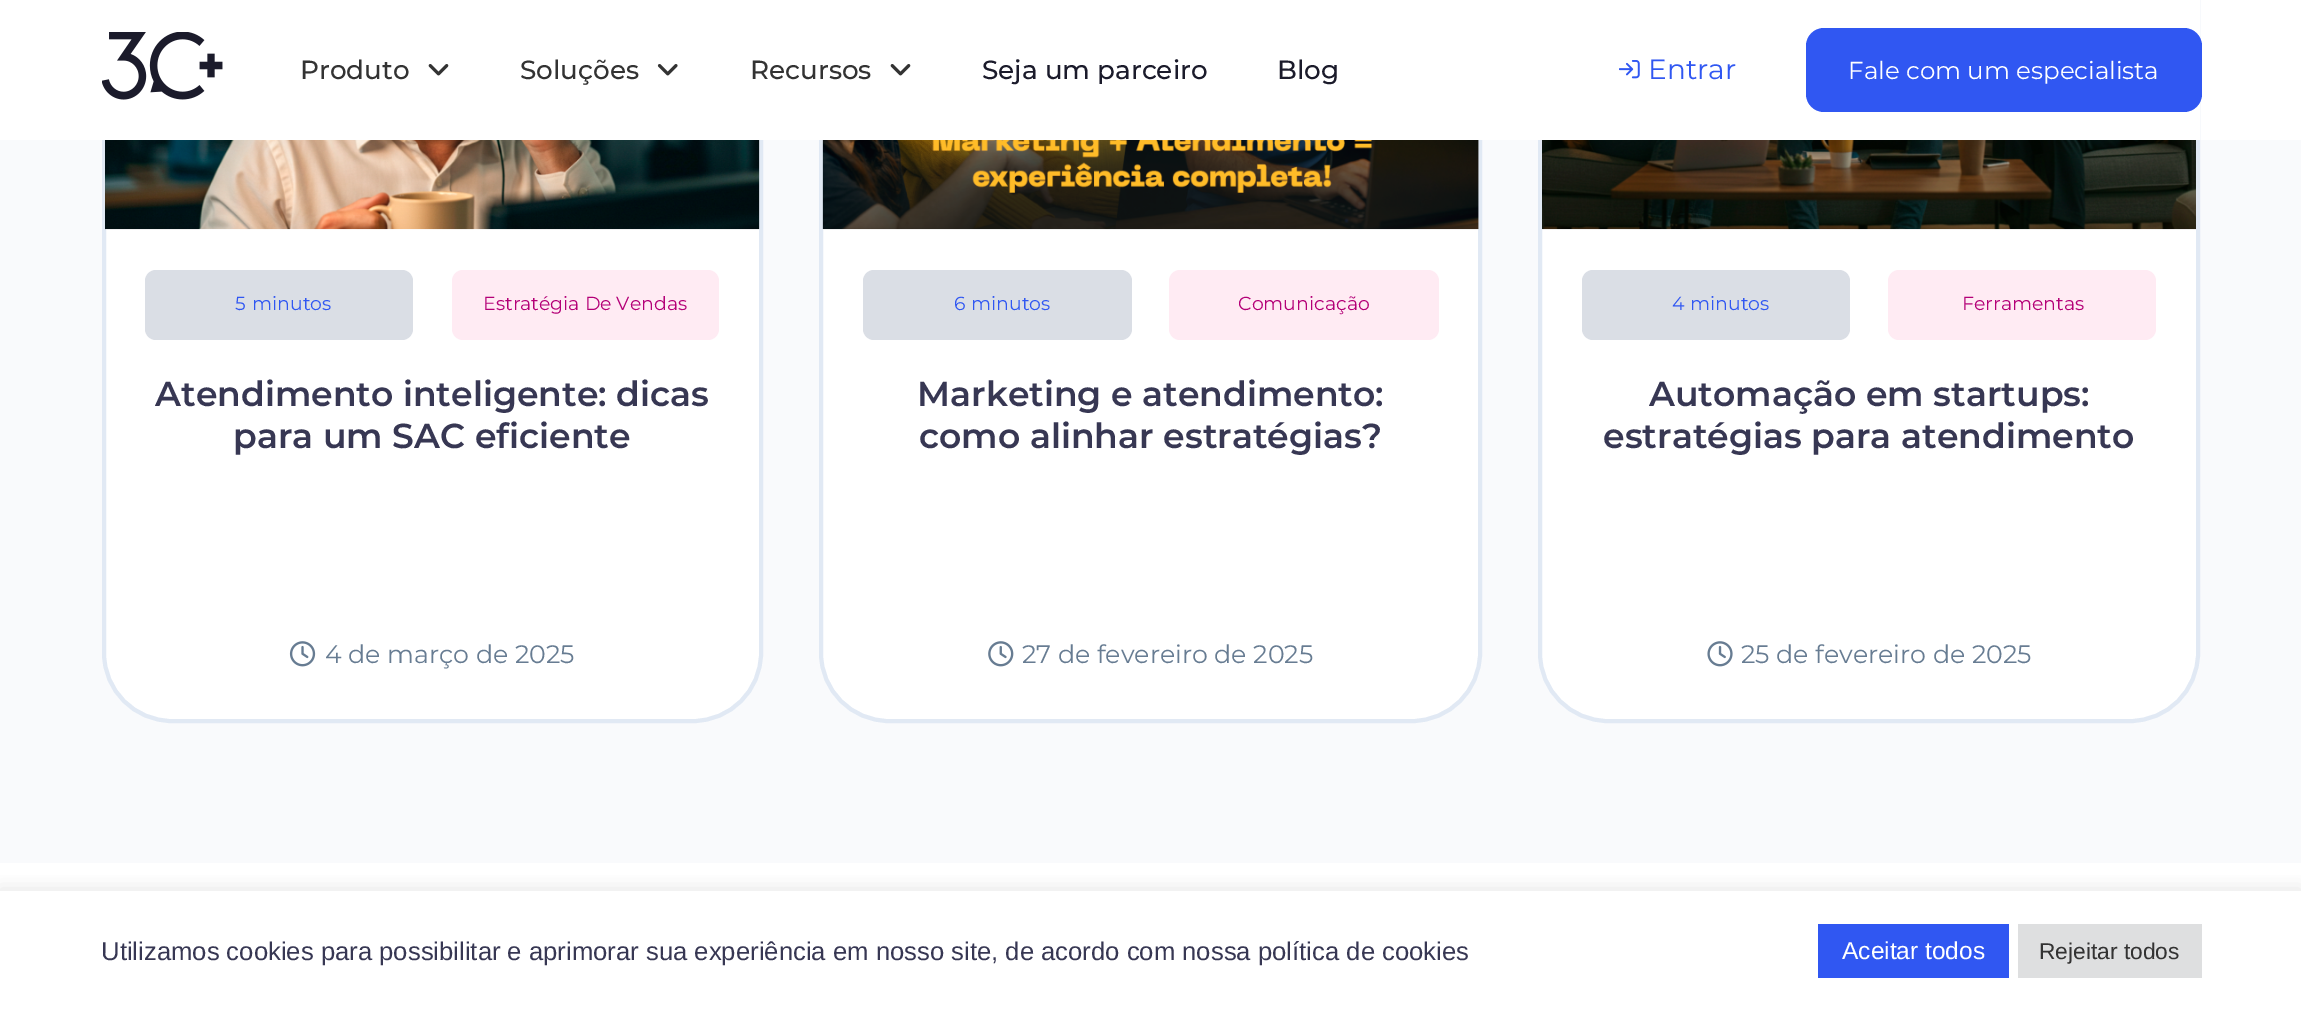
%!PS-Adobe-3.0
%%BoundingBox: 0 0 2301 1010
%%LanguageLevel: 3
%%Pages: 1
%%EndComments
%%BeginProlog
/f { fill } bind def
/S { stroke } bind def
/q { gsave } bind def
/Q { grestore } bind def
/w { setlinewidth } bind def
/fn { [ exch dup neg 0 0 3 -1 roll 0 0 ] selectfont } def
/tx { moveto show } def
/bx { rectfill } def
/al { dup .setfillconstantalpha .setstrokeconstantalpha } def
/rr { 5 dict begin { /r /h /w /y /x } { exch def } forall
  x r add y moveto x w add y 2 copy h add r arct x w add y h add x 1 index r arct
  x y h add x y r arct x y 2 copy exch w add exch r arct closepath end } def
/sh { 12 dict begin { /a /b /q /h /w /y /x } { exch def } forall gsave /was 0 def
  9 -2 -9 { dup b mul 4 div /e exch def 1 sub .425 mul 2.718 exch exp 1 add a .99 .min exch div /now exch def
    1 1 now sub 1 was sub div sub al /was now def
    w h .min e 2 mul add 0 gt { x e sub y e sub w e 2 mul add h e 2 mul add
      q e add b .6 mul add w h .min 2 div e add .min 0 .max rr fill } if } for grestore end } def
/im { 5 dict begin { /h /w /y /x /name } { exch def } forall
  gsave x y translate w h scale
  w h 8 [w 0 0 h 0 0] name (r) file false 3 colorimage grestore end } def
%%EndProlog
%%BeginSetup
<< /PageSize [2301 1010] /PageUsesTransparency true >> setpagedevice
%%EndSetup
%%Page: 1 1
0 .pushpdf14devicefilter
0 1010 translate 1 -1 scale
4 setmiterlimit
1 setgray
0 0 2301 1010 bx
0.976 0.98 0.988 setrgbcolor
0 140 2301 723 bx
1 setgray
104 -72 657 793 68 rr q f Q
0.882 0.914 0.957 setrgbcolor
4 w
S
1 setgray
821 -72 659 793 68 rr q f Q
0.882 0.914 0.957 setrgbcolor
S
1 setgray
1540 -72 658 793 68 rr q f Q
0.882 0.914 0.957 setrgbcolor
S
1 setgray
102 0 2098 140 bx
(image0.raw) 102 32 121 68 im
/Montserrat-Medium 26.25 fn
0.2 setgray
(Produto) 300 79 tx
(image1.raw) 428 64 21 12 im
(Soluções) 520 79 tx
(image2.raw) 657 64 21 12 im
(Recursos) 750 79 tx
(image1.raw) 890 64 21 12 im
0.106 0.106 0.169 setrgbcolor
(Seja um parceiro) 982 79 tx
(Blog) 1277 79 tx
(image3.raw) 1619 60 21 19 im
/Montserrat-Regular 28 fn
0.188 0.341 0.949 setrgbcolor
(Entrar) 1648 79 tx
1806 28 396 84 18 rr f
/Montserrat-Regular 24.5 fn
1 setgray
(Fale com um especialista) 1848 79 tx
(image4.raw) 105 140 655 90 im
0.855 0.871 0.898 setrgbcolor
145 270 268 70 11 rr f
/Montserrat-Regular 18.9 fn
0.188 0.341 0.949 setrgbcolor
(5) 235 310 tx
(minutos) 252 310 tx
(image5.raw) 289 641 27 26 im
/Montserrat-Regular 25.25 fn
0.404 0.486 0.573 setrgbcolor
(4 de março de 2025) 325 663 tx
1 0.922 0.953 setrgbcolor
452 270 267 70 11 rr f
/Montserrat-Regular 18.9 fn
0.706 0 0.467 setrgbcolor
(Estratégia De Vendas) 483 310 tx
/Montserrat-SemiBold 34.6 fn
0.216 0.216 0.325 setrgbcolor
(Atendimento inteligente: dicas) 155 406 tx
(para um SAC eficiente) 233 448 tx
(image6.raw) 822 140 657 90 im
0.855 0.871 0.898 setrgbcolor
863 270 269 70 11 rr f
/Montserrat-Regular 18.9 fn
0.188 0.341 0.949 setrgbcolor
(6) 954 310 tx
(minutos) 971 310 tx
(image7.raw) 988 641 26 26 im
/Montserrat-Regular 25.25 fn
0.404 0.486 0.573 setrgbcolor
(27 de fevereiro de 2025) 1022 663 tx
1 0.922 0.953 setrgbcolor
1169 270 270 70 11 rr f
/Montserrat-Regular 18.9 fn
0.706 0 0.467 setrgbcolor
(Comunicação) 1238 310 tx
/Montserrat-SemiBold 34.6 fn
0.216 0.216 0.325 setrgbcolor
(Marketing e atendimento:) 917 406 tx
(como alinhar estratégias?) 919 448 tx
(image8.raw) 1542 140 654 90 im
0.855 0.871 0.898 setrgbcolor
1582 270 268 70 11 rr f
/Montserrat-Regular 18.9 fn
0.188 0.341 0.949 setrgbcolor
(4) 1672 310 tx
(minutos) 1690 310 tx
(image9.raw) 1707 641 26 26 im
/Montserrat-Regular 25.25 fn
0.404 0.486 0.573 setrgbcolor
(25 de fevereiro de 2025) 1741 663 tx
1 0.922 0.953 setrgbcolor
1888 270 268 70 11 rr f
/Montserrat-Regular 18.9 fn
0.706 0 0.467 setrgbcolor
(Ferramentas) 1962 310 tx
/Montserrat-SemiBold 34.6 fn
0.216 0.216 0.325 setrgbcolor
(Automação em startups:) 1649 406 tx
(estratégias para atendimento) 1603 448 tx
q
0 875 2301 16 rectclip
0.675 0.671 0.671 setrgbcolor
0 889 2301 121 0 9 0.3 sh
Q
/LiberationSans-Regular 25.67 fn
(Utilizamos cookies para possibilitar e aprimorar sua experiência em nosso site, de acordo com nossa política de cookies) 101 960 tx
0.188 0.341 0.949 setrgbcolor
1818 924 191 54 bx
/LiberationSans-Regular 24.5 fn
1 setgray
(Aceitar todos) 1842 959 tx
0.871 0.875 0.878 setrgbcolor
2018 924 184 54 bx
/LiberationSans-Regular 22.75 fn
0.2 setgray
(Rejeitar todos) 2039 959 tx
.poppdf14devicefilter showpage
%%EOF
